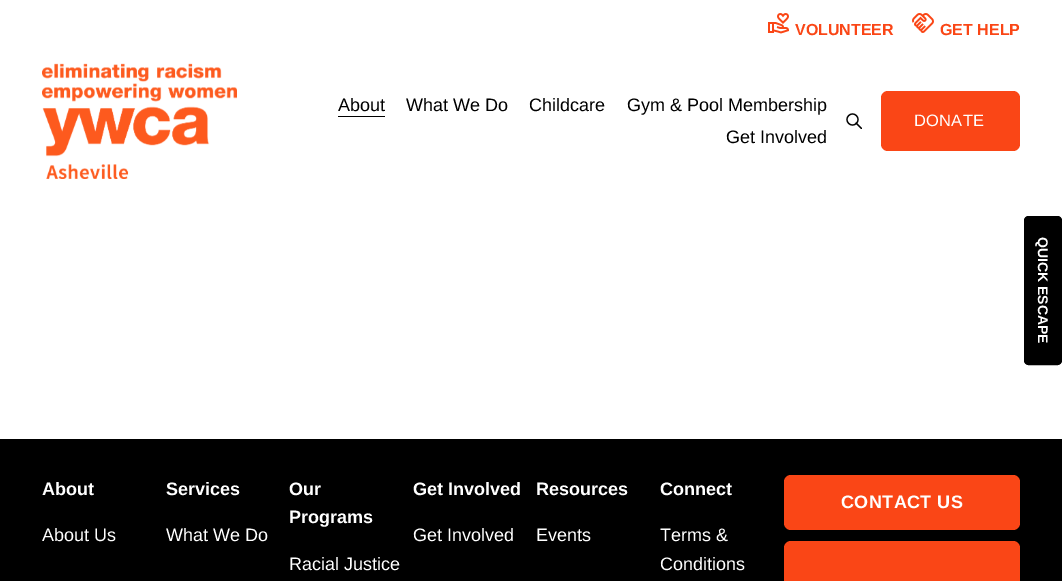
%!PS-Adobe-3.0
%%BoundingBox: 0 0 1062 581
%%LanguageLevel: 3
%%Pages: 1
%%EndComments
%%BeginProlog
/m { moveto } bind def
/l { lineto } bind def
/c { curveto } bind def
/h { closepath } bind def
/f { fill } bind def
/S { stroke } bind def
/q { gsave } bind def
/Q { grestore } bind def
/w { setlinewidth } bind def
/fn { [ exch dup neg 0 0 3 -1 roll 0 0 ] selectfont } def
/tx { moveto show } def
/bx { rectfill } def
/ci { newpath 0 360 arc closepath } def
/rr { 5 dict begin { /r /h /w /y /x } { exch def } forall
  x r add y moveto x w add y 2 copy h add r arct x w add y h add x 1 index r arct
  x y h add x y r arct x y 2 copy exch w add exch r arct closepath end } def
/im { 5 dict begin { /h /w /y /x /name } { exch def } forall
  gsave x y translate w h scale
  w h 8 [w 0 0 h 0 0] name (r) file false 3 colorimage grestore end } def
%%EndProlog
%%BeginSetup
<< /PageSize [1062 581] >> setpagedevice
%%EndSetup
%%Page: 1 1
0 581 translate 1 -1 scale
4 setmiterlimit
1 setgray
0 0 1062 581 bx
(image0.raw) 768 13 21 21 im
/LiberationSans-Bold 16 fn
0.98 0.275 0.086 setrgbcolor
(VOLUNTEER) 795 35 tx
(image1.raw) 912 13 22 20 im
(GET HELP) 940 35 tx
(image2.raw) 42 63 195 116 im
0 setgray
338 116 47 1 bx
/LiberationSans-Regular 18 fn
(About) 338 111 tx
(What We Do) 406 111 tx
(Childcare) 529 111 tx
(Gym & Pool Membership) 627 111 tx
(Get Involved) 726 143 tx
1.2 w
1 setlinecap
1 setlinejoin
856 123 m 861.5 128.5 l S
0 setlinecap
0 setlinejoin
852.5 119.5 5.5 ci S
0.98 0.275 0.086 setrgbcolor
881 91 139 60 7 rr f
/LiberationSans-Regular 16.5 fn
1 setgray
914 126 m 0.25 0 (DONATE) ashow
0 setgray
0 439 1062 142 bx
/LiberationSans-Bold 18 fn
1 setgray
(About) 42 495 tx
/LiberationSans-Regular 18 fn
(About Us) 42 541 tx
/LiberationSans-Bold 18 fn
(Services) 166 495 tx
/LiberationSans-Regular 18 fn
(What We Do) 166 541 tx
/LiberationSans-Bold 18 fn
(Our) 289 495 tx
(Programs) 289 523 tx
/LiberationSans-Regular 18 fn
(Racial Justice) 289 570 tx
/LiberationSans-Bold 18 fn
(Get Involved) 413 495 tx
/LiberationSans-Regular 18 fn
(Get Involved) 413 541 tx
/LiberationSans-Bold 18 fn
(Resources) 536 495 tx
/LiberationSans-Regular 18 fn
(Events) 536 541 tx
/LiberationSans-Bold 18 fn
(Connect) 660 495 tx
/LiberationSans-Regular 18 fn
(Terms &) 660 541 tx
(Conditions) 660 570 tx
0.98 0.275 0.086 setrgbcolor
784 475 236 55 7 rr f
/LiberationSans-Bold 18 fn
1 setgray
841 508 m 0.4 0 (CONTACT US) ashow
0.98 0.275 0.086 setrgbcolor
784 541 236 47 7 rr f
0 setgray
1062 221 m 1062 360 l 1062 363 1060 365 1057 365 c 1029 365 l 1026 365 1024 363 1024 360 c 1024 221 l 1024 218 1026 216 1029 216 c 1057 216 l 1060 216 1062 218 1062 221 c h f
1 w
1061.5 221 m 1061.5 360 l 1061.5 362.5 1059.5 364.5 1057 364.5 c 1029 364.5 l 1026.5 364.5 1024.5 362.5 1024.5 360 c 1024.5 221 l 1024.5 218.5 1026.5 216.5 1029 216.5 c 1057 216.5 l 1059.5 216.5 1061.5 218.5 1061.5 221 c h S
/LiberationSans-Bold 14 fn
1 setgray
q 1038 237 translate 90 rotate 0 0 m (QUICK ESCAPE) show Q
showpage
%%EOF
